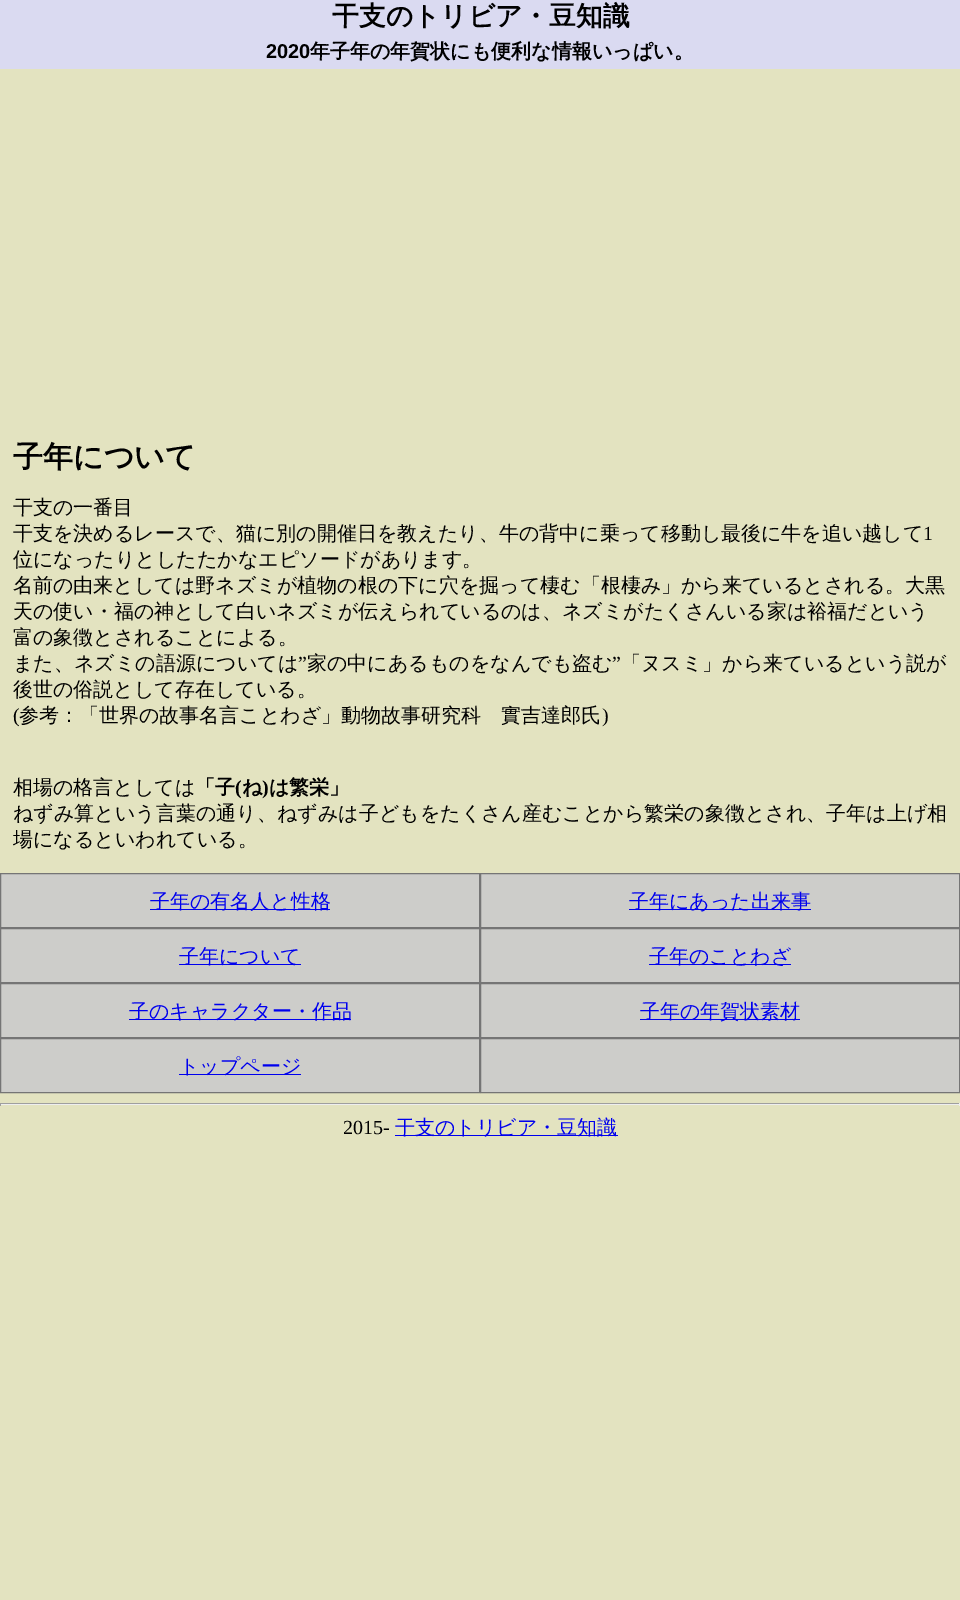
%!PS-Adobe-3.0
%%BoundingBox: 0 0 960 1600
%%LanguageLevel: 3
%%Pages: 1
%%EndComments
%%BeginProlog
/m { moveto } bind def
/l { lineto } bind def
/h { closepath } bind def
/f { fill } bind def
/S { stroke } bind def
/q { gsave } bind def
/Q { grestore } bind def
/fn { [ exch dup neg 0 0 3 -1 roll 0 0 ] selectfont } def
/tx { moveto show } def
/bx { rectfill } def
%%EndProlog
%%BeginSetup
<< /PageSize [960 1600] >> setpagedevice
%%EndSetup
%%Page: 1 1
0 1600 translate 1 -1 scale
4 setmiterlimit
0.89 0.89 0.753 setrgbcolor
0 0 960 1600 bx
0.855 0.855 0.945 setrgbcolor
0 0 960 69 bx
/WenQuanYiZenHei-Bold 26.75 fn
0 setgray
(干支のトリビア・豆知識) 332 25 tx
/LiberationSans-Bold 20 fn
(2020) 266 58 tx
/WenQuanYiZenHei-Bold 20 fn
(年子年の年賀状にも便利な情報いっぱい。) 310 58 tx
/WenQuanYiZenHei-Bold 30 fn
(子年について) 13 467 tx
/WenQuanYiZenHei-Medium 20 fn
(干支の一番目) 13 514 tx
(干支を決めるレースで、猫に別の開催日を教えたり、牛の背中に乗って移動し最後に牛を追い越して) 13 540 tx
/LiberationSerif-Regular 20 fn
(1) 923 540 tx
/WenQuanYiZenHei-Medium 20 fn
(位になったりとしたたかなエピソードがあります。) 13 566 tx
(名前の由来としては野ネズミが植物の根の下に穴を掘って棲む「根棲み」から来ているとされる。大黒) 13 592 tx
(天の使い・福の神として白いネズミが伝えられているのは、ネズミがたくさんいる家は裕福だという) 13 618 tx
(富の象徴とされることによる。) 13 644 tx
(また、ネズミの語源については) 13 670 tx
/LiberationSerif-Regular 20 fn
(”) 298 670 tx
/WenQuanYiZenHei-Medium 20 fn
(家の中にあるものをなんでも盗む) 307 670 tx
/LiberationSerif-Regular 20 fn
(”) 612 670 tx
/WenQuanYiZenHei-Medium 20 fn
(「ヌスミ」から来ているという説が) 621 670 tx
(後世の俗説として存在している。) 13 696 tx
/LiberationSerif-Regular 20 fn
(\() 13 722 tx
/WenQuanYiZenHei-Medium 20 fn
(参考：「世界の故事名言ことわざ」動物故事研究科　實吉達郎氏) 19 722 tx
/LiberationSerif-Regular 20 fn
(\)) 602 722 tx
/WenQuanYiZenHei-Medium 20 fn
(相場の格言としては) 13 794 tx
/WenQuanYiZenHei-Bold 20 fn
(「子) 195 794 tx
/LiberationSerif-Bold 20 fn
(\() 235 794 tx
/WenQuanYiZenHei-Bold 20 fn
(ね) 242 794 tx
/LiberationSerif-Bold 20 fn
(\)) 262 794 tx
/WenQuanYiZenHei-Bold 20 fn
(は繁栄」) 269 794 tx
/WenQuanYiZenHei-Medium 20 fn
(ねずみ算という言葉の通り、ねずみは子どもをたくさん産むことから繁栄の象徴とされ、子年は上げ相) 13 820 tx
(場になるといわれている。) 13 846 tx
0.804 0.804 0.792 setrgbcolor
0.5 873.5 m 479.5 873.5 l 479.5 927.5 l 0.5 927.5 l h q f Q
0.459 setgray
S
0 0 0.933 setrgbcolor
150 909 180 1 bx
(子年の有名人と性格) 150 908 tx
0.804 0.804 0.792 setrgbcolor
480.5 873.5 m 959.5 873.5 l 959.5 927.5 l 480.5 927.5 l h q f Q
0.459 setgray
S
0 0 0.933 setrgbcolor
629 909 182 1 bx
(子年にあった出来事) 629 908 tx
0.804 0.804 0.792 setrgbcolor
0.5 928.5 m 479.5 928.5 l 479.5 982.5 l 0.5 982.5 l h q f Q
0.459 setgray
S
0 0 0.933 setrgbcolor
179 964 122 1 bx
(子年について) 179 963 tx
0.804 0.804 0.792 setrgbcolor
480.5 928.5 m 959.5 928.5 l 959.5 982.5 l 480.5 982.5 l h q f Q
0.459 setgray
S
0 0 0.933 setrgbcolor
649 964 142 1 bx
(子年のことわざ) 649 963 tx
0.804 0.804 0.792 setrgbcolor
0.5 983.5 m 479.5 983.5 l 479.5 1037.5 l 0.5 1037.5 l h q f Q
0.459 setgray
S
0 0 0.933 setrgbcolor
129 1019 222 1 bx
(子のキャラクター・作品) 129 1018 tx
0.804 0.804 0.792 setrgbcolor
480.5 983.5 m 959.5 983.5 l 959.5 1037.5 l 480.5 1037.5 l h q f Q
0.459 setgray
S
0 0 0.933 setrgbcolor
640 1019 160 1 bx
(子年の年賀状素材) 640 1018 tx
0.804 0.804 0.792 setrgbcolor
0.5 1038.5 m 479.5 1038.5 l 479.5 1092.5 l 0.5 1092.5 l h q f Q
0.459 setgray
S
0 0 0.933 setrgbcolor
179 1074 122 1 bx
(トップページ) 179 1073 tx
0.804 0.804 0.792 setrgbcolor
480.5 1038.5 m 959.5 1038.5 l 959.5 1092.5 l 480.5 1092.5 l h q f Q
0.459 setgray
S
0.624 setgray
0 1103 960 1 bx
0.933 setgray
959 1103 1 3 bx
0 1104 960 1 bx
0.624 setgray
0 1103 1 3 bx
/LiberationSerif-Regular 20 fn
0 setgray
(2015-) 343 1134 tx
0 0 0.933 setrgbcolor
395 1135 223 1 bx
/WenQuanYiZenHei-Medium 20 fn
(干支のトリビア・豆知識) 395 1134 tx
showpage
%%EOF
